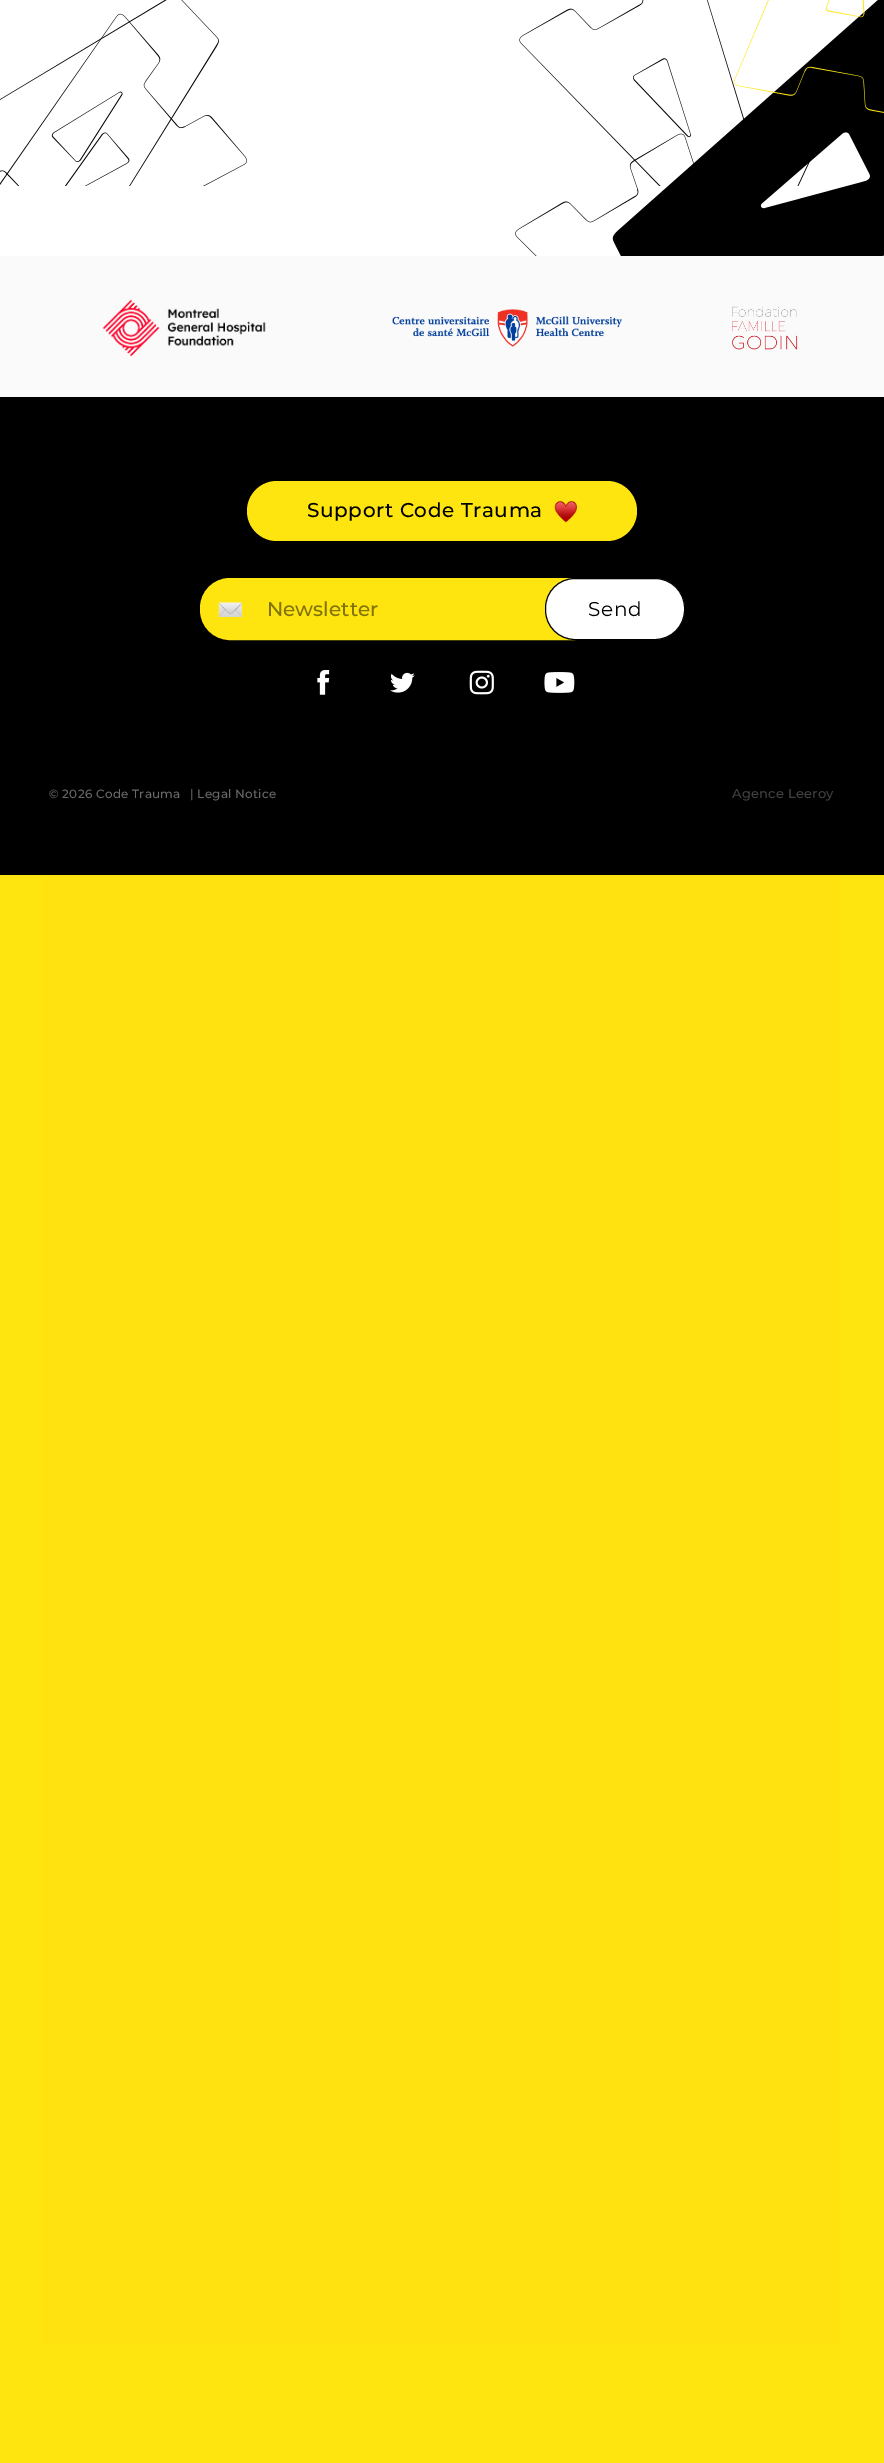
%!PS-Adobe-3.0
%%BoundingBox: 0 0 884 2463
%%LanguageLevel: 3
%%Pages: 1
%%EndComments
%%BeginProlog
/m { moveto } bind def
/l { lineto } bind def
/c { curveto } bind def
/h { closepath } bind def
/f { fill } bind def
/S { stroke } bind def
/q { gsave } bind def
/Q { grestore } bind def
/w { setlinewidth } bind def
/fn { [ exch dup neg 0 0 3 -1 roll 0 0 ] selectfont } def
/tx { moveto show } def
/bx { rectfill } def
/rr { 5 dict begin { /r /h /w /y /x } { exch def } forall
  x r add y moveto x w add y 2 copy h add r arct x w add y h add x 1 index r arct
  x y h add x y r arct x y 2 copy exch w add exch r arct closepath end } def
/im { 5 dict begin { /h /w /y /x /name } { exch def } forall
  gsave x y translate w h scale
  w h 8 [w 0 0 h 0 0] name (r) file false 3 colorimage grestore end } def
%%EndProlog
%%BeginSetup
<< /PageSize [884 2463] >> setpagedevice
%%EndSetup
%%Page: 1 1
0 2463 translate 1 -1 scale
4 setmiterlimit
1 0.898 0.059 setrgbcolor
0 0 884 2463 bx
1 setgray
0 0 884 256 bx
(image2.raw) 0 13 247 173 im
(image0.raw) 0 0 219 186 im
(image1.raw) 519 0 226 186 im
(image3.raw) 797 161 14 25 im
(image4.raw) 612 0 272 256 im
(image5.raw) 734 0 150 113 im
(image6.raw) 515 133 209 123 im
0.98 setgray
0 256 884 141 bx
(image7.raw) 102 299 164 58 im
(image8.raw) 392 309 230 38 im
(image9.raw) 732 306 66 44 im
0 setgray
0 397 884 478 bx
1 0.898 0.059 setrgbcolor
247 481 390 60 30 rr f
/Montserrat-Medium 20 fn
0 setgray
307 517 m 0.6 0 (Support Code Trauma) ashow
(image10.raw) 554 500 23 23 im
1 0.898 0.059 setrgbcolor
230 579 m 574 579 l 574 639 l 230 639 l 214 639 201 626 201 610 c 201 608 l 201 592 214 579 230 579 c h q f Q
2 w
S
(image11.raw) 218 602 24 15 im
0.502 0.451 0.031 setrgbcolor
(Newsletter) 267 616 tx
1 setgray
545.5 578.5 139 61 29.5 rr q f Q
0 setgray
1 w
S
/Montserrat-Regular 20 fn
588 616 m 0.6 0 (Send) ashow
(image12.raw) 317 670 13 25 im
(image13.raw) 390 672 25 21 im
(image14.raw) 469 670 25 25 im
(image15.raw) 544 672 31 21 im
/Montserrat-Medium 12 fn
0.412 setgray
49 798 m 0.25 0 (© 2026 Code Trauma) ashow
190 798 m 0.25 0 (| Legal Notice) ashow
/Montserrat-Medium 13 fn
0.259 setgray
732 798 m 0.25 0 (Agence Leeroy) ashow
1 0.886 0.059 setrgbcolor
44 875 796 1470 bx
showpage
%%EOF
